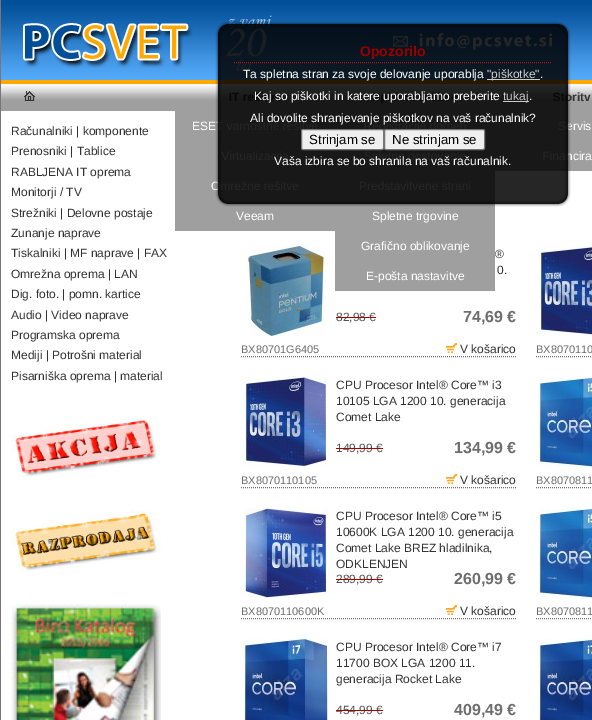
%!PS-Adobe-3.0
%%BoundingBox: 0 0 592 720
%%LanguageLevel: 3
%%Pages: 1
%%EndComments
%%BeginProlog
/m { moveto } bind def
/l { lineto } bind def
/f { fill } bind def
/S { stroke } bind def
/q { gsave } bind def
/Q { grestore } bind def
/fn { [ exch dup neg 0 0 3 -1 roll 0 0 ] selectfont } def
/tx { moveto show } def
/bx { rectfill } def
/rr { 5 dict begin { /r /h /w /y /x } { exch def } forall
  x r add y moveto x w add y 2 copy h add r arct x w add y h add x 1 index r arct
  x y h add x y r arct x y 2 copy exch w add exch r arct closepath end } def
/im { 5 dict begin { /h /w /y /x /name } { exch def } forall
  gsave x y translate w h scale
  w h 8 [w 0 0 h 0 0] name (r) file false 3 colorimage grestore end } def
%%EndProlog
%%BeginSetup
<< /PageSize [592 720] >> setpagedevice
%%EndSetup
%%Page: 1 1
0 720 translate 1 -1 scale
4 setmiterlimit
1 setgray
0 0 592 720 bx
(image1.raw) 1 0 591 84 im
(image3.raw) 226 15 46 57 im
(image4.raw) 393 33 159 17 im
(image5.raw) 1 84 591 27 im
0.612 0.114 0.078 setrgbcolor
[1 1] 0 setdash
231 151.5 m 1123 151.5 l S
0.624 setgray
175 111 160 120 bx
/LiberationSans-Regular 12 fn
1 setgray
(ESE) 192 130 tx
(O) 211 190 tx
/LiberationSans-Bold 12 fn
0.2 setgray
(oritv) 565 101 tx
0.624 setgray
495 111 97 60 bx
/LiberationSans-Regular 12 fn
1 setgray
(ervis) 566 130 tx
(ncira) 566 160 tx
0.624 setgray
335 201 160 90 bx
(image0.raw) 215 21 356 186 im
0.612 0.114 0.078 setrgbcolor
234 62.5 m 552 62.5 l S
/LiberationSans-Bold 14 fn
0.6 0 0 setrgbcolor
(Opozorilo) 360 56 tx
/LiberationSans-Regular 12 fn
1 setgray
(Ta spletna stran za svoje delovanje uporablja) 243 78 tx
0.8 setgray
487 79 53 1 bx
("piškotke") 487 78 tx
1 setgray
(.) 540 78 tx
(Kaj so piškotki in katere uporabljamo preberite) 254 100 tx
0.8 setgray
503 101 26 1 bx
(tukaj) 503 100 tx
1 setgray
(.) 529 100 tx
(Ali dovolite shranjevanje piškotkov na vaš računalnik?) 250 122 tx
0.937 setgray
301.5 129.5 82 20 1.5 rr q f Q
0.463 setgray
[] 0 setdash
S
/LiberationSans-Regular 13.25 fn
0 setgray
(Strinjam se) 309 144 tx
0.937 setgray
384.5 129.5 100 20 1.5 rr q f Q
0.463 setgray
S
0 setgray
(Ne strinjam se) 392 144 tx
/LiberationSans-Regular 12 fn
1 setgray
(Vaša izbira se bo shranila na vaš računalnik.) 274 165 tx
0.467 setgray
0 0 1 720 bx
(image2.raw) 23 23 170 45 im
(image6.raw) 24 91 11 10 im
1 setgray
(Veeam) 236 220 tx
(Spletne trgovine) 372 220 tx
(Grafično oblikovanje) 361 250 tx
(E-pošta nastavitve) 366 280 tx
0.2 setgray
(Računalniki | komponente) 11 135 tx
(Prenosniki | Tablice) 11 155 tx
(RABLJENA IT oprema) 11 176 tx
(Monitorji / TV) 11 196 tx
(Strežniki | Delovne postaje) 11 217 tx
(Zunanje naprave) 11 237 tx
(Tiskalniki | MF naprave | FAX) 11 257 tx
(Omrežna oprema | LAN) 11 278 tx
(Dig. foto. | pomn. kartice) 11 298 tx
(Audio | Video naprave) 11 319 tx
(Programska oprema) 11 339 tx
(Mediji | Potrošni material) 11 359 tx
(Pisarniška oprema | material) 11 380 tx
(image7.raw) 11 416 146 61 im
(image8.raw) 11 510 150 61 im
(image9.raw) 11 604 150 116 im
0.431 setgray
[1 1] 0 setdash
241 356.5 m 516 356.5 l S
(image10.raw) 247 246 78 90 im
0.2 setgray
(®) 495 258 tx
(0.) 497 274 tx
0.333 setgray
(82,98 €) 336 321 tx
0.667 0 0 setrgbcolor
336 317 40 1 bx
/LiberationSans-Bold 16 fn
0.431 setgray
(74,69 €) 463 322 tx
/LiberationSans-Regular 11 fn
(BX80701G6405) 241 353 tx
(image11.raw) 446 343 11 10 im
/LiberationSans-Regular 12 fn
0.2 setgray
(V košarico) 460 353 tx
0.431 setgray
536 356.5 m 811 356.5 l S
(image12.raw) 539 246 53 90 im
/LiberationSans-Regular 11 fn
(BX8070110) 536 353 tx
241 487.5 m 516 487.5 l S
(image13.raw) 244 377 84 90 im
/LiberationSans-Regular 12 fn
0.2 setgray
(CPU Procesor Intel® Core™ i3) 336 389 tx
(10105 LGA 1200 10. generacija) 336 405 tx
(Comet Lake) 336 421 tx
0.333 setgray
(149,99 €) 336 452 tx
0.667 0 0 setrgbcolor
336 448 47 1 bx
/LiberationSans-Bold 16 fn
0.431 setgray
(134,99 €) 454 453 tx
/LiberationSans-Regular 11 fn
(BX8070110105) 241 484 tx
(image11.raw) 446 474 11 10 im
/LiberationSans-Regular 12 fn
0.2 setgray
(V košarico) 460 484 tx
0.431 setgray
536 487.5 m 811 487.5 l S
(image14.raw) 539 377 53 90 im
/LiberationSans-Regular 11 fn
(BX8070811) 536 484 tx
241 618.5 m 516 618.5 l S
(image15.raw) 244 508 84 90 im
/LiberationSans-Regular 12 fn
0.2 setgray
(CPU Procesor Intel® Core™ i5) 336 520 tx
(10600K LGA 1200 10. generacija) 336 536 tx
(Comet Lake BREZ hladilnika,) 336 552 tx
(ODKLENJEN) 336 568 tx
0.333 setgray
(289,99 €) 336 583 tx
0.667 0 0 setrgbcolor
336 579 47 1 bx
/LiberationSans-Bold 16 fn
0.431 setgray
(260,99 €) 454 584 tx
/LiberationSans-Regular 11 fn
(BX8070110600K) 241 615 tx
(image11.raw) 446 605 11 10 im
/LiberationSans-Regular 12 fn
0.2 setgray
(V košarico) 460 615 tx
0.431 setgray
536 618.5 m 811 618.5 l S
(image14.raw) 539 508 53 90 im
/LiberationSans-Regular 11 fn
(BX8070811) 536 615 tx
(image16.raw) 244 639 84 81 im
/LiberationSans-Regular 12 fn
0.2 setgray
(CPU Procesor Intel® Core™ i7) 336 651 tx
(11700 BOX LGA 1200 11.) 336 667 tx
(generacija Rocket Lake) 336 683 tx
0.333 setgray
(454,99 €) 336 714 tx
0.667 0 0 setrgbcolor
336 710 47 1 bx
/LiberationSans-Bold 16 fn
0.431 setgray
(409,49 €) 454 715 tx
(image17.raw) 539 639 53 81 im
showpage
%%EOF
